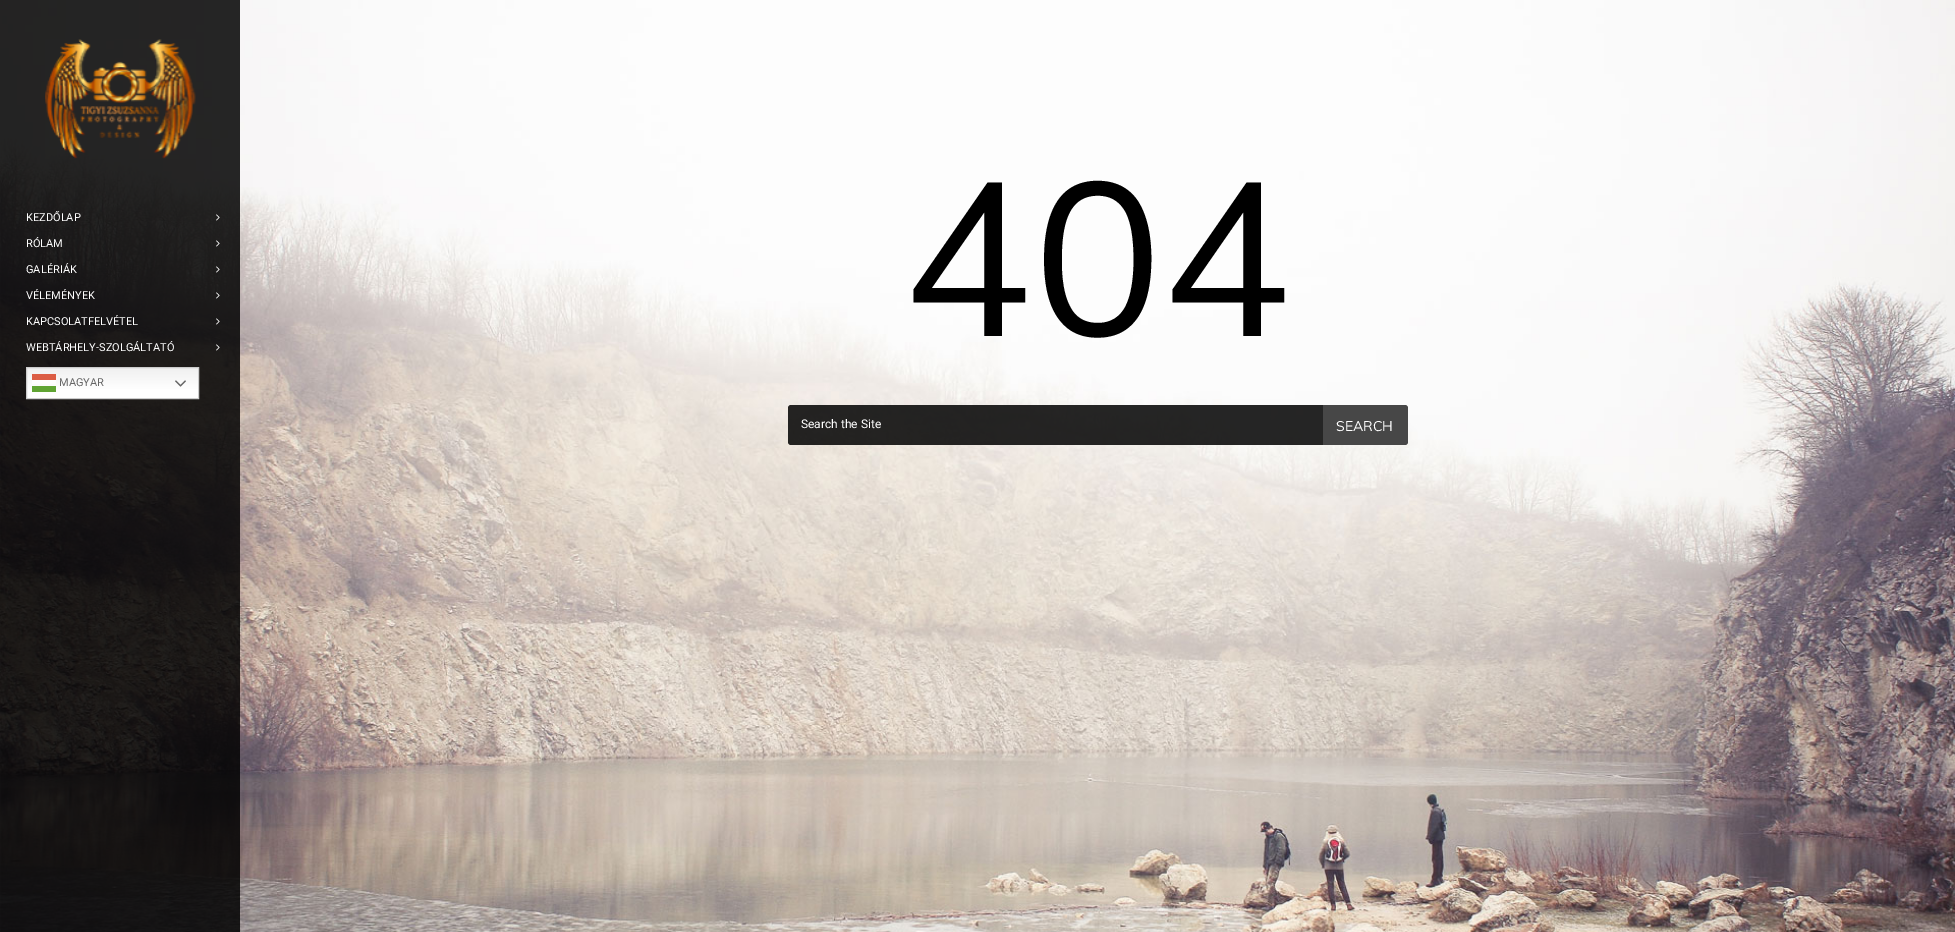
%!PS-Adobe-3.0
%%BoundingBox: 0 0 1955 932
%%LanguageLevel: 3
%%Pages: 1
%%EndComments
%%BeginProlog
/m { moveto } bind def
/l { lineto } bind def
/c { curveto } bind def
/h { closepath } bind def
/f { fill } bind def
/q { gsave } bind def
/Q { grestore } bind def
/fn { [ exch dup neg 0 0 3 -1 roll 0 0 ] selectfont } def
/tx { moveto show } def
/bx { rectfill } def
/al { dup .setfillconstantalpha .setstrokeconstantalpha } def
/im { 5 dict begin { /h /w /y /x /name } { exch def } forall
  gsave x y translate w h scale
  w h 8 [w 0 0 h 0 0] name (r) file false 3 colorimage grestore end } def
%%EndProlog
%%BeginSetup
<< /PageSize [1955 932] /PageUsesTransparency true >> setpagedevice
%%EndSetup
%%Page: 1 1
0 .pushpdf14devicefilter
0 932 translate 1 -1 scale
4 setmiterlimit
1 setgray
0 0 1955 932 bx
(image0.raw) 0 0 1955 932 im
0.85 al
0 setgray
0 0 240 932 bx
1 al
(image1.raw) 45 39 151 120 im
/Roboto-Regular 11 fn
1 setgray
(KEZDŐLAP) 26 221 tx
(image2.raw) 216 214 4 7 im
(RÓLAM) 26 247 tx
(image3.raw) 216 240 4 7 im
(GALÉRIÁK) 26 273 tx
(image4.raw) 216 266 4 7 im
(VÉLEMÉNYEK) 26 299 tx
(image5.raw) 216 292 4 7 im
(KAPCSOLATFELVÉTEL) 26 325 tx
(image6.raw) 216 318 4 7 im
(WEBTÁRHELY-SZOLGÁLTATÓ) 26 351 tx
(image7.raw) 216 344 4 7 im
q 27 368 m 198 368 l 198 398 l 27 398 l h clip newpath
<< /ShadingType 2 /ColorSpace /DeviceRGB /Coords [113 367 113 399] /Extend [true true] /Function << /FunctionType 3 /Domain [0 1] /Functions [<< /FunctionType 2 /Domain [0 1] /C0 [0.937 0.937 0.937] /C1 [1 1 1] /N 1 >> << /FunctionType 2 /Domain [0 1] /C0 [1 1 1] /C1 [1 1 1] /N 1 >>] /Bounds [0.7] /Encode [0 1 0 1] >> >> shfill Q
0.8 setgray
26.5 367.5 172 31 rectstroke
0.863 0.365 0.267 setrgbcolor
32 374 24 6 bx
0.8 al
1 setgray
32 380 24 4 bx
1 al
0.4 setgray
(MAGYAR) 59 386 tx
(image8.raw) 175 380 11 7 im
0.376 0.643 0.2 setrgbcolor
32 386 24 6 bx
/Muli-Regular 216 fn
0 setgray
(404) 903 336 tx
0.85 al
791 405 m 1323 405 l 1323 445 l 791 445 l 789.5 445 788 443.5 788 442 c 788 408 l 788 406.5 789.5 405 791 405 c h f
/Roboto-Regular 12 fn
1 al
1 setgray
(Search the Site) 801 428 tx
0.278 setgray
1323 405 m 1405 405 l 1406.5 405 1408 406.5 1408 408 c 1408 442 l 1408 443.5 1406.5 445 1405 445 c 1323 445 l h f
/Muli-Regular 14 fn
1 setgray
(SEARCH) 1336 431 tx
.poppdf14devicefilter showpage
%%EOF
